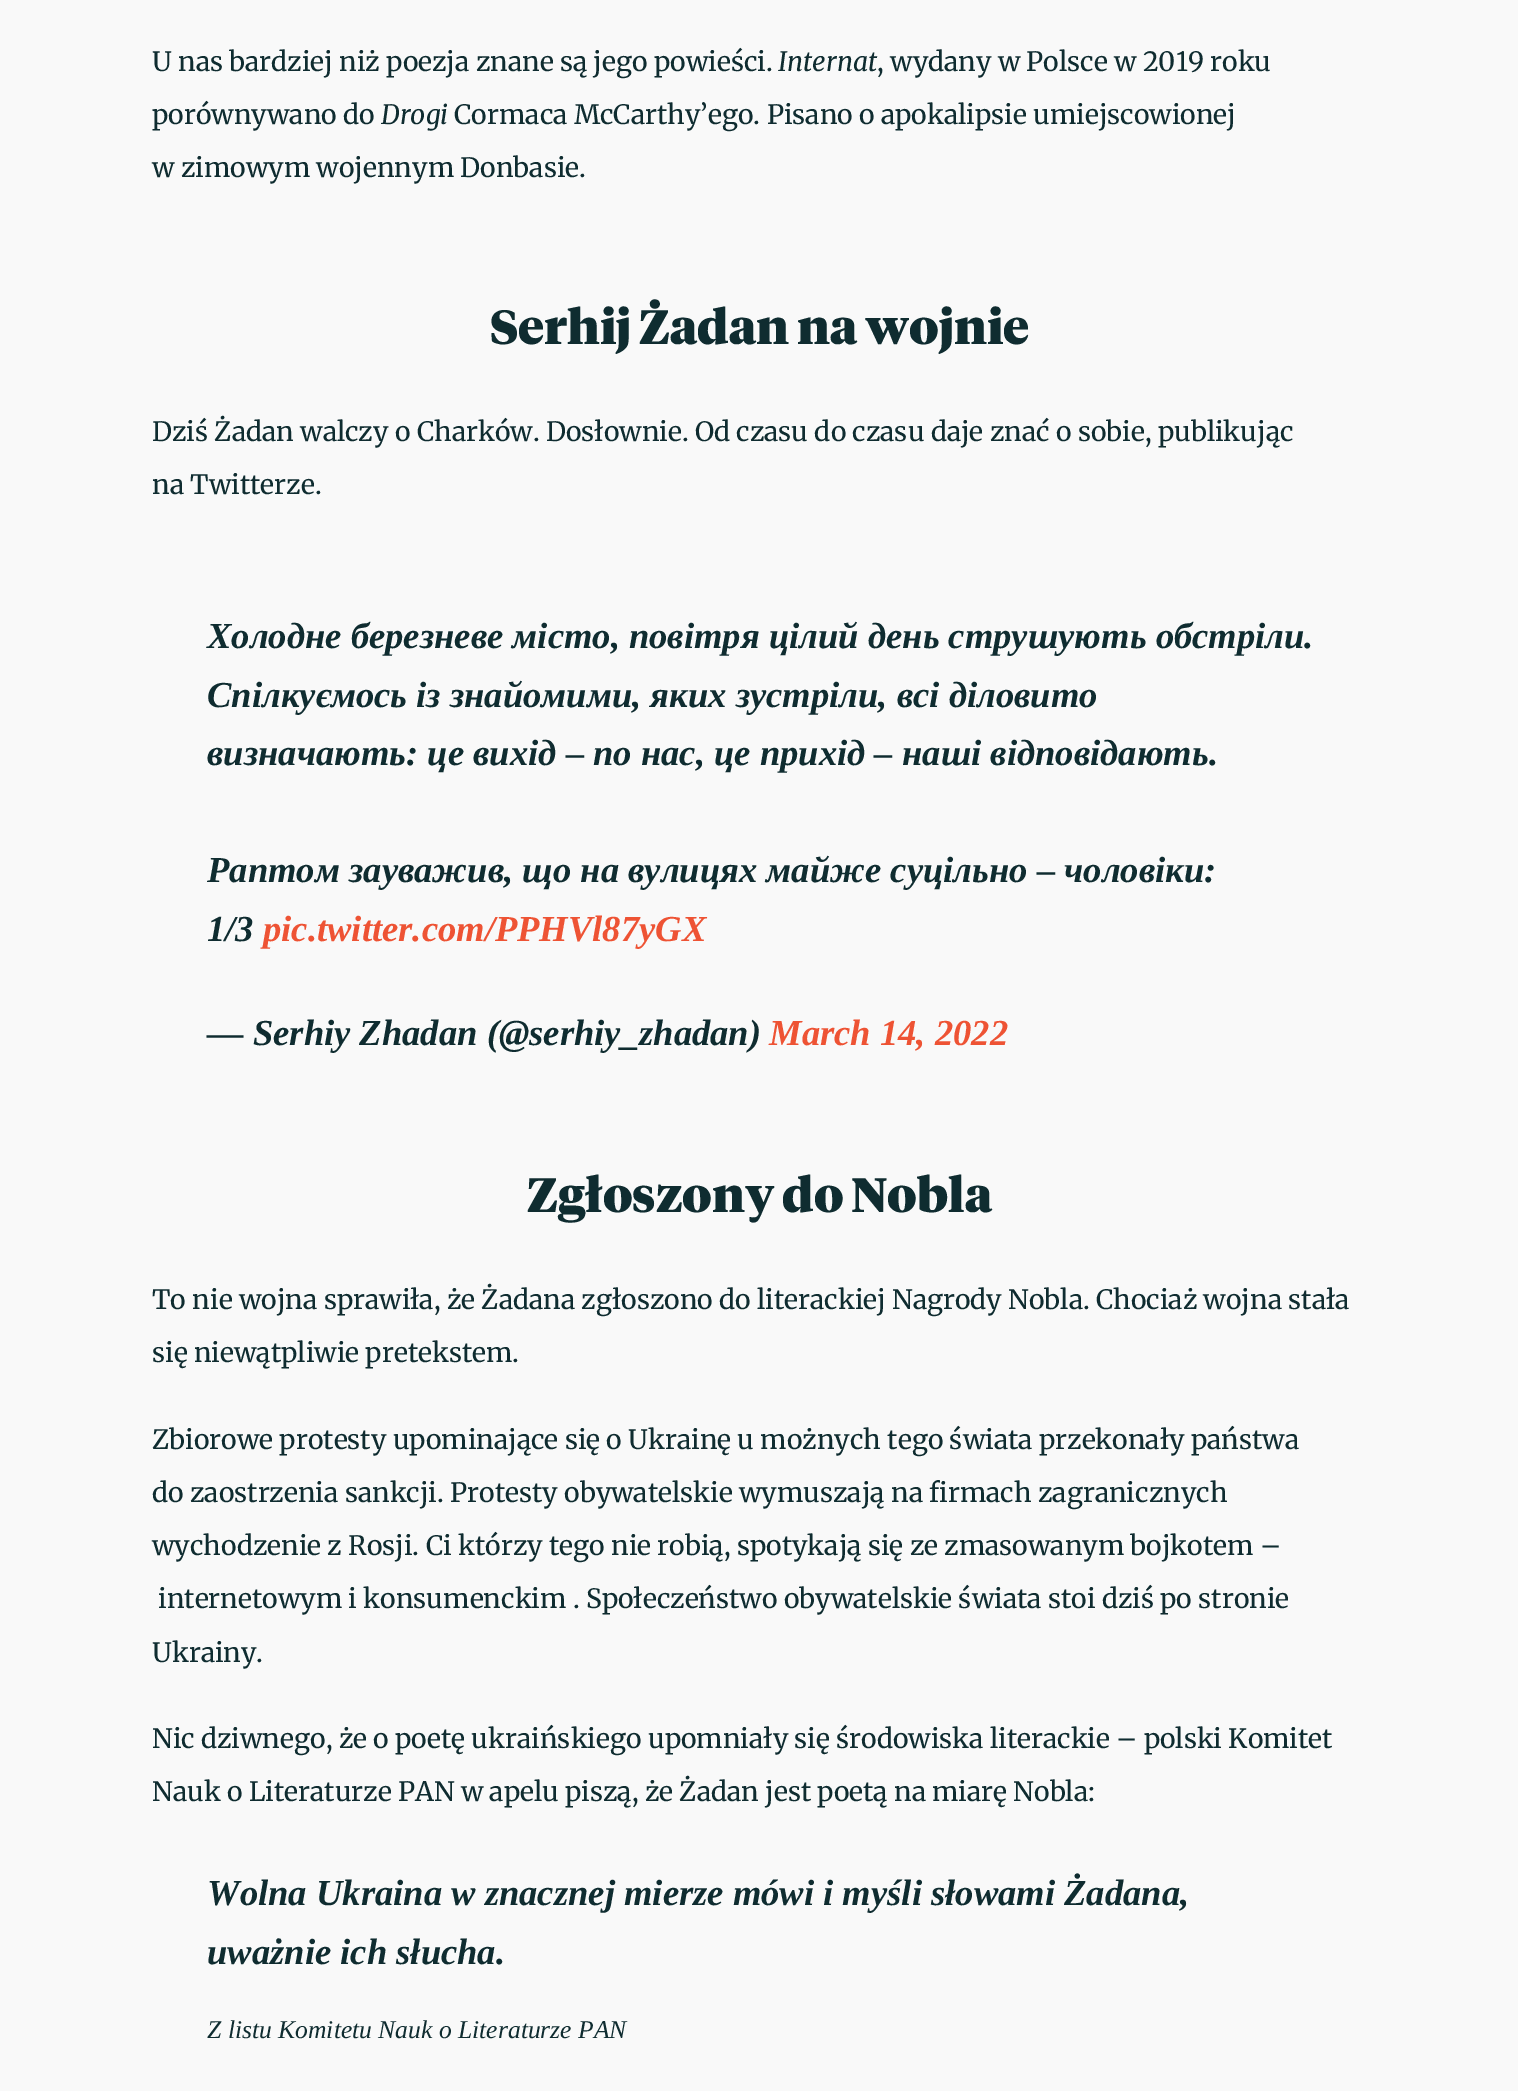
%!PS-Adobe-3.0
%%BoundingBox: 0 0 1518 2091
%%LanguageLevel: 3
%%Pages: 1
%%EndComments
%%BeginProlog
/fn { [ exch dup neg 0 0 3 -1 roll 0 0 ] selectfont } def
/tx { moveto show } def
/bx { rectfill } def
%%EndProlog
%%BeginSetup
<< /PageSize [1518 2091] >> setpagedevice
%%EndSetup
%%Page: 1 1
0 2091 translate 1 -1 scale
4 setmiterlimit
0.976 setgray
0 0 1518 2091 bx
/Merriweather-Regular 26.6 fn
0.059 0.173 0.188 setrgbcolor
(U nas bardziej niż poezja znane są jego powieści.) 152 71 tx
/Merriweather-Italic 26.6 fn
(Internat) 778 71 tx
/Merriweather-Regular 26.6 fn
(, wydany w Polsce w 2019 roku) 877 71 tx
(porównywano do) 152 124 tx
/Merriweather-Italic 26.6 fn
(Drogi) 381 124 tx
/Merriweather-Regular 26.6 fn
(Cormaca McCarthy’ego. Pisano o apokalipsie umiejscowionej) 454 124 tx
(w zimowym wojennym Donbasie.) 152 177 tx
/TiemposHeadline-Black 47.9 fn
(Serhij Żadan na wojnie) 490 344 tx
/Merriweather-Regular 26.6 fn
(Dziś Żadan walczy o Charków. Dosłownie. Od czasu do czasu daje znać o sobie, publikując) 152 441 tx
(na Twitterze.) 152 494 tx
/LiberationSerif-BoldItalic 36.6 fn
(Холодне березневе місто, повітря цілий день струшують обстріли.) 207 648 tx
(Спілкуємось із знайомими, яких зустріли, всі діловито) 207 707 tx
(визначають: це вихід – по нас, це прихід – наші відповідають.) 207 765 tx
(Раптом зауважив, що на вулицях майже суцільно – чоловіки:) 207 882 tx
(1/3) 207 941 tx
0.933 0.325 0.204 setrgbcolor
(pic.twitter.com/PPHVl87yGX) 263 941 tx
0.059 0.173 0.188 setrgbcolor
(— Serhiy Zhadan \(@serhiy_zhadan\)) 207 1045 tx
0.933 0.325 0.204 setrgbcolor
(March 14, 2022) 769 1045 tx
/TiemposHeadline-Black 47.9 fn
0.059 0.173 0.188 setrgbcolor
(Zgłoszony do Nobla) 527 1212 tx
/Merriweather-Regular 26.6 fn
(To nie wojna sprawiła, że Żadana zgłoszono do literackiej Nagrody Nobla. Chociaż wojna stała) 152 1309 tx
(się niewątpliwie pretekstem.) 152 1362 tx
(Zbiorowe protesty upominające się o Ukrainę u możnych tego świata przekonały państwa) 152 1449 tx
(do zaostrzenia sankcji. Protesty obywatelskie wymuszają na firmach zagranicznych) 152 1502 tx
(wychodzenie z Rosji. Ci którzy tego nie robią, spotykają się ze zmasowanym bojkotem –) 152 1555 tx
(internetowym i konsumenckim . Społeczeństwo obywatelskie świata stoi dziś po stronie) 158 1608 tx
(Ukrainy.) 152 1662 tx
(Nic dziwnego, że o poetę ukraińskiego upomniały się środowiska literackie – polski Komitet) 152 1748 tx
(Nauk o Literaturze PAN w apelu piszą, że Żadan jest poetą na miarę Nobla:) 152 1801 tx
/LiberationSerif-BoldItalic 36.6 fn
(Wolna Ukraina w znacznej mierze mówi i myśli słowami Żadana,) 207 1905 tx
(uważnie ich słucha.) 207 1964 tx
/LiberationSerif-Italic 25.6 fn
(Z listu Komitetu Nauk o Literaturze PAN) 207 2038 tx
showpage
%%EOF
